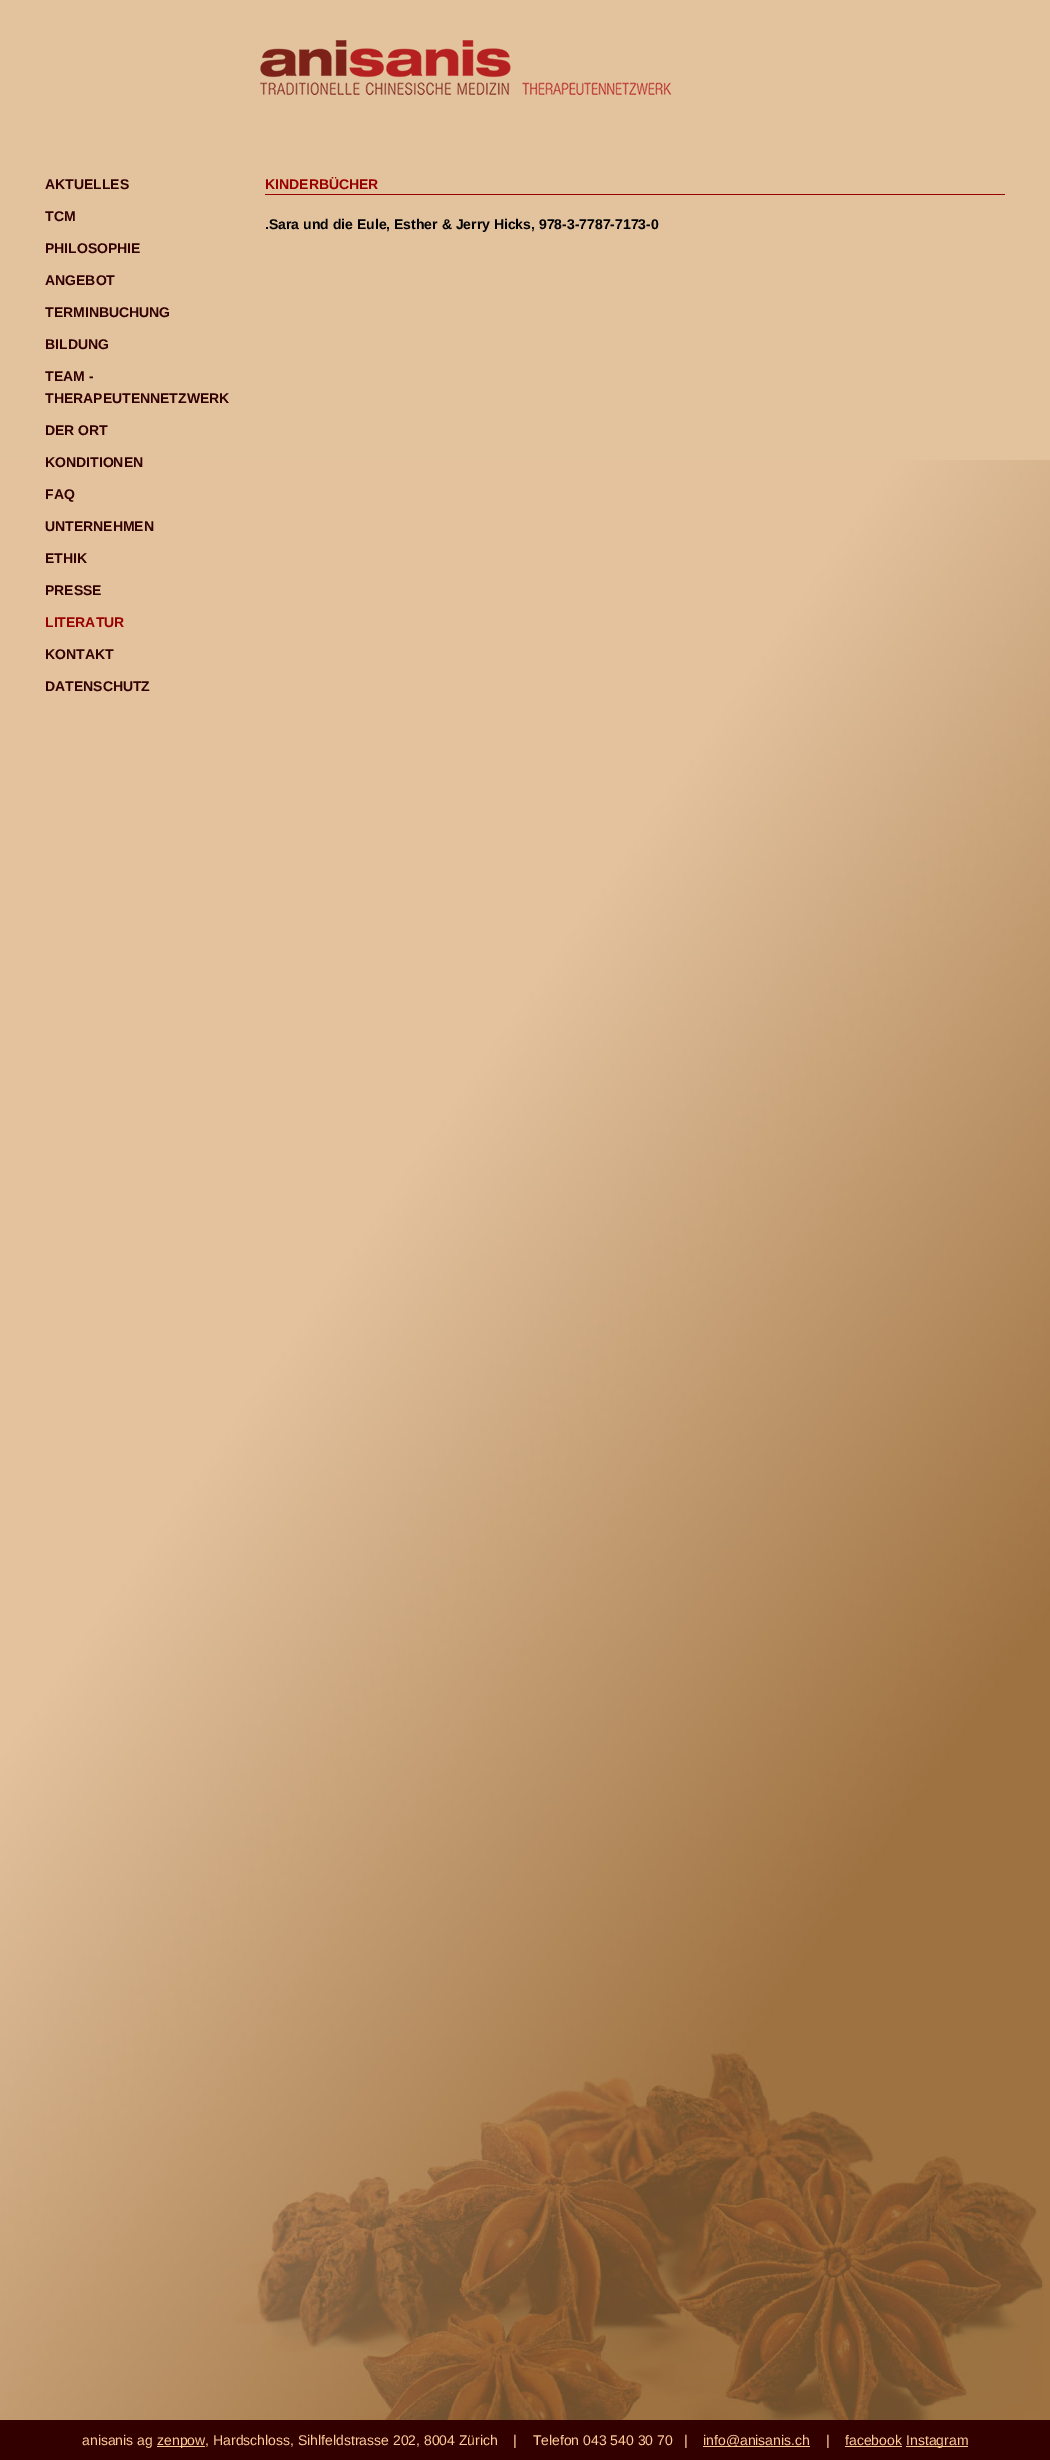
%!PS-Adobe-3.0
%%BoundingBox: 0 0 1050 2460
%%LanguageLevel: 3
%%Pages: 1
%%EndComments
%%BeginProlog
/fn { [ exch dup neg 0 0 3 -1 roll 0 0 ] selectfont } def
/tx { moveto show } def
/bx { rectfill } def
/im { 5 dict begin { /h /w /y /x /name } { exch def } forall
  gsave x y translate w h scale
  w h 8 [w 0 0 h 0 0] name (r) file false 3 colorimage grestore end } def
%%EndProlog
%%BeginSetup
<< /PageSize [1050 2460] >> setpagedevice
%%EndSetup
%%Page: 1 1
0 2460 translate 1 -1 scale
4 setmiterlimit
0.89 0.761 0.62 setrgbcolor
0 0 1050 2460 bx
(image0.raw) 260 40 411 55 im
/LiberationSans-Bold 14 fn
0.2 0 0 setrgbcolor
(AKTUELLES) 45 189 tx
(TCM) 45 221 tx
(PHILOSOPHIE) 45 253 tx
(ANGEBOT) 45 285 tx
(TERMINBUCHUNG) 45 317 tx
(BILDUNG) 45 349 tx
(TEAM -) 45 381 tx
(THERAPEUTENNETZWERK) 45 403 tx
(DER ORT) 45 435 tx
(image1.raw) 0 460 1050 1960 im
(KONDITIONEN) 45 467 tx
(FAQ) 45 499 tx
(UNTERNEHMEN) 45 531 tx
(ETHIK) 45 563 tx
(PRESSE) 45 595 tx
0.6 0 0 setrgbcolor
(LITERATUR) 45 627 tx
0.2 0 0 setrgbcolor
(KONTAKT) 45 659 tx
(DATENSCHUTZ) 45 691 tx
0.6 0 0 setrgbcolor
265 194 740 1 bx
(KINDERBÜCHER) 265 189 tx
0 setgray
(.Sara und die Eule, Esther & Jerry Hicks, 978-3-7787-7173-0) 265 229 tx
0.2 0 0 setrgbcolor
0 2420 1050 40 bx
/LiberationSans-Regular 14 fn
1 0.8 0.6 setrgbcolor
(anisanis ag) 82 2445 tx
157 2446 48 1 bx
(zenpow, Hardschloss, Sihlfeldstrasse 202, 8004 Zürich    |    Telefon 043 540 30 70   |) 157 2445 tx
703 2446 107 1 bx
(info@anisanis.ch) 703 2445 tx
(|) 826 2445 tx
(facebook) 845 2445 tx
845 2446 57 1 bx
906 2446 62 1 bx
(Instagram) 906 2445 tx
showpage
%%EOF
